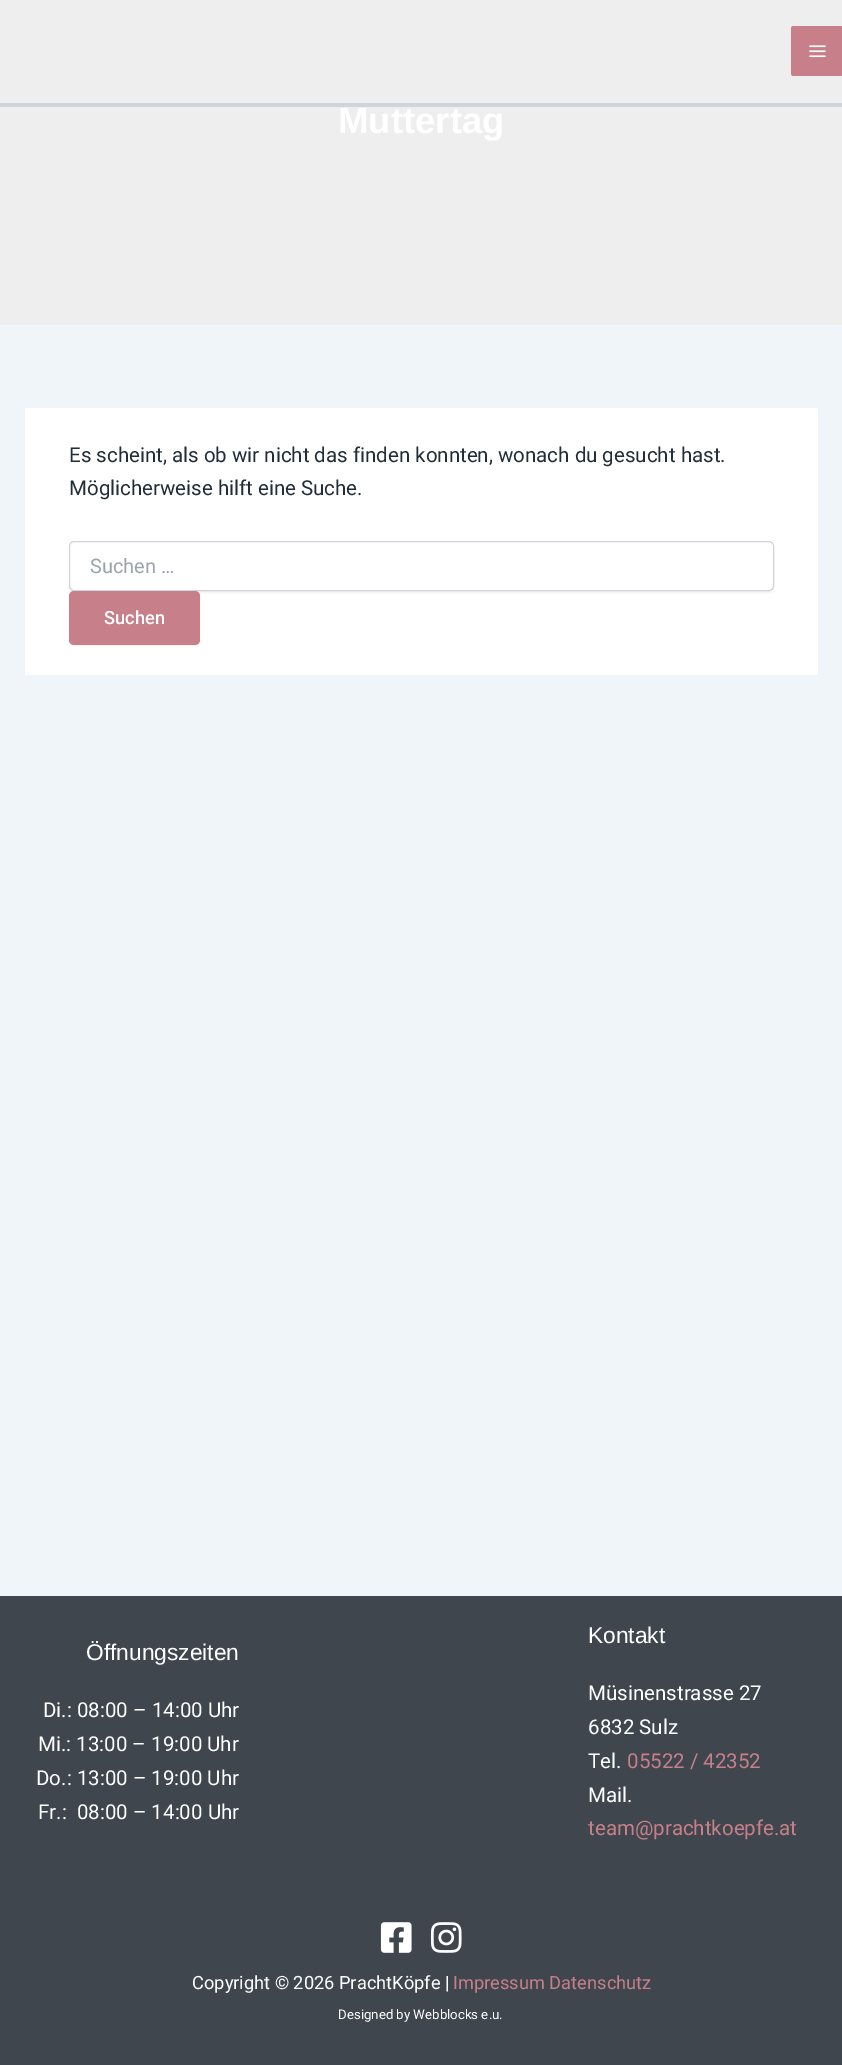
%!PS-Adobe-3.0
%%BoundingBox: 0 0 842 2065
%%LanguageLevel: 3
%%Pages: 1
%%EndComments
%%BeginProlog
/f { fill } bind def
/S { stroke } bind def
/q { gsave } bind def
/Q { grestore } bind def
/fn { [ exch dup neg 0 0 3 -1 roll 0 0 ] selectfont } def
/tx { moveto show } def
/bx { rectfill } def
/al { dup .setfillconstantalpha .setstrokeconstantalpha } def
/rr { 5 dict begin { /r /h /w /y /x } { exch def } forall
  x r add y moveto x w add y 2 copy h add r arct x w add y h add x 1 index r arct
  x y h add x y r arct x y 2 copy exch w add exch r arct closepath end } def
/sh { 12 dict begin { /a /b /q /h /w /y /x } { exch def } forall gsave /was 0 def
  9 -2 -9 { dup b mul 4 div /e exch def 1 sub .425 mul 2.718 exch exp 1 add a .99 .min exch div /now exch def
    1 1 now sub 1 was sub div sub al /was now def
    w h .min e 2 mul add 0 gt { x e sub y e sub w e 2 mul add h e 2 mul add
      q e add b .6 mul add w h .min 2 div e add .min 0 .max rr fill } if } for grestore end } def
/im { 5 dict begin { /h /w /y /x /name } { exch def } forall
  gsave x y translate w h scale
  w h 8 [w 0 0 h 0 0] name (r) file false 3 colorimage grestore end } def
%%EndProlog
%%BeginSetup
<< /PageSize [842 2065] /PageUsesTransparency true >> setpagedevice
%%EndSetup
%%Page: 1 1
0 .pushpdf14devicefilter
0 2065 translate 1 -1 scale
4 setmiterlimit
0.941 0.961 0.98 setrgbcolor
0 0 842 2065 bx
0.933 setgray
0 0 842 325 bx
0.82 0.835 0.859 setrgbcolor
0 103 842 4 bx
0.78 0.498 0.541 setrgbcolor
791 26 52 50 2.5 rr f
(image0.raw) 809 45 17 13 im
/LiberationSans-Bold 36.5 fn
1 setgray
(Muttertag) 338 133 tx
25 408 793 267 bx
/Roboto-Regular 20.5 fn
0.137 0.176 0.227 setrgbcolor
(Es scheint, als ob wir nicht das finden konnten, wonach du gesucht hast.) 69 462 tx
(Möglicherweise hilft eine Suche.) 69 495 tx
0 setgray
69 543 705 50 5 1 0.05 sh
1 setgray
69.5 541.5 704 49 4.5 rr q f Q
0.82 0.835 0.859 setrgbcolor
S
/Roboto-Regular 20 fn
0.612 0.639 0.686 setrgbcolor
(Suchen …) 90 573 tx
0 setgray
69 593 131 53 5 1 0.05 sh
0.78 0.498 0.541 setrgbcolor
69 591 131 54 5 rr f
/Roboto-Medium 18.25 fn
1 setgray
(Suchen) 104 624 tx
0.247 0.275 0.302 setrgbcolor
0 1596 842 469 bx
/LiberationSans-Regular 22.75 fn
1 setgray
(Öffnungszeiten) 86 1660 tx
/Roboto-Regular 20.5 fn
(Di.: 08:00 – 14:00 Uhr) 43 1717 tx
(Mi.: 13:00 – 19:00 Uhr) 38 1751 tx
(Do.: 13:00 – 19:00 Uhr) 36 1785 tx
(Fr.:  08:00 – 14:00 Uhr) 38 1819 tx
/LiberationSans-Regular 22.75 fn
(Kontakt) 588 1643 tx
/Roboto-Regular 20.5 fn
(Müsinenstrasse 27) 588 1700 tx
(6832 Sulz) 588 1734 tx
(Tel.) 588 1768 tx
0.78 0.498 0.541 setrgbcolor
(05522 / 42352) 627 1768 tx
1 setgray
(Mail.) 588 1802 tx
0.78 0.498 0.541 setrgbcolor
(team@prachtkoepfe.at) 588 1835 tx
(image1.raw) 380 1922 32 31 im
(image2.raw) 430 1922 32 31 im
/Roboto-Regular 18.25 fn
1 setgray
(Copyright © 2026 PrachtKöpfe |) 192 1989 tx
0.78 0.498 0.541 setrgbcolor
(Impressum Datenschutz) 453 1989 tx
/Roboto-Regular 13.25 fn
1 setgray
(Designed by Webblocks e.u.) 338 2019 tx
.poppdf14devicefilter showpage
%%EOF
